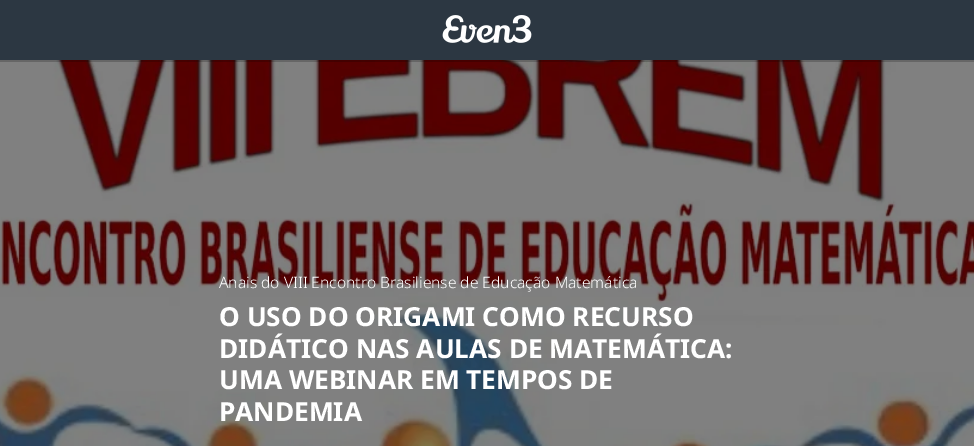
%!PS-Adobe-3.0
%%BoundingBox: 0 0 974 446
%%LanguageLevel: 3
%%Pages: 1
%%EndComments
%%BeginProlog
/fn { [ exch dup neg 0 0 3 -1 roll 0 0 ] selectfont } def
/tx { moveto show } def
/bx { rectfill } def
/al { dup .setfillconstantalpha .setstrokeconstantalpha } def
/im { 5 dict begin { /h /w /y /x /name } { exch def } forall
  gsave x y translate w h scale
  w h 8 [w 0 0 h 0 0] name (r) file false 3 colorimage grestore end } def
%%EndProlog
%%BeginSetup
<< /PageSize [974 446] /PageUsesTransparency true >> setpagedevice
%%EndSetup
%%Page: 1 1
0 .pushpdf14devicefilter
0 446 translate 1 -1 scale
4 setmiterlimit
1 setgray
0 0 974 446 bx
(image1.raw) 0 60 974 386 im
0.2 al
0 setgray
0 60 974 2 bx
1 al
0.173 0.216 0.259 setrgbcolor
0 0 974 60 bx
(image0.raw) 442 15 90 28 im
/NotoSans-Light 15.6 fn
1 setgray
(Anais do VIII Encontro Brasiliense de Educação Matemática) 219 288 tx
/NotoSans-Bold 26.25 fn
(O USO DO ORIGAMI COMO RECURSO) 219 326 tx
(DIDÁTICO NAS AULAS DE MATEMÁTICA:) 219 358 tx
(UMA WEBINAR EM TEMPOS DE) 219 389 tx
(PANDEMIA) 219 421 tx
.poppdf14devicefilter showpage
%%EOF
